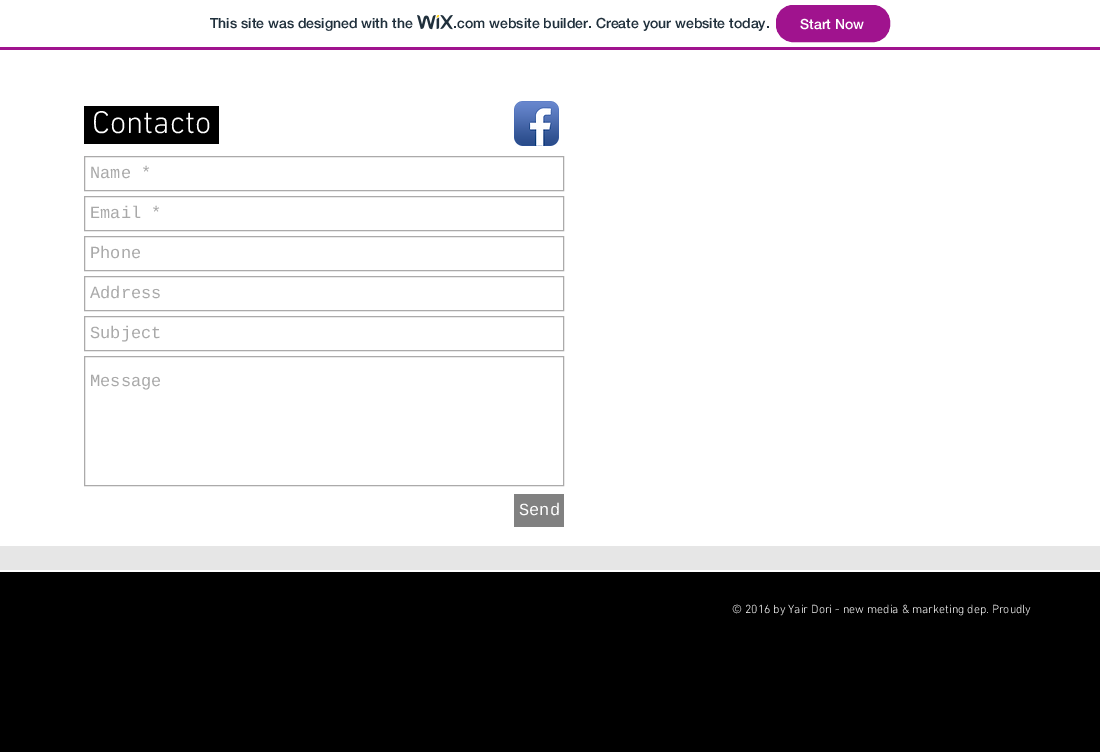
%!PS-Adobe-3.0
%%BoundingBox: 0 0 1100 752
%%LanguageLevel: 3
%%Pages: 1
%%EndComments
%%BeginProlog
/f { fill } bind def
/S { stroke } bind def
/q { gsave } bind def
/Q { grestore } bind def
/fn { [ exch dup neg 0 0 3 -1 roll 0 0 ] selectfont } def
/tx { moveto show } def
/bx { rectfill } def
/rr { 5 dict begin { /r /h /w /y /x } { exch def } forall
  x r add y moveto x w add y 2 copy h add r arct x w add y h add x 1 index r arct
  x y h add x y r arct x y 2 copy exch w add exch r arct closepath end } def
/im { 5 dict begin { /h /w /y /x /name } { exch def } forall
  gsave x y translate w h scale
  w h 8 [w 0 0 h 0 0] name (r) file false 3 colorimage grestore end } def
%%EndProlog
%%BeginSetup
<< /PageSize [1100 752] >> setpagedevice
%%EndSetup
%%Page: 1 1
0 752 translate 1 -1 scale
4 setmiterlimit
1 setgray
0 0 1100 752 bx
0.627 0.075 0.557 setrgbcolor
0 47 1100 3 bx
/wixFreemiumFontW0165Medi-Medium 14 fn
0.125 0.188 0.235 setrgbcolor
(This site was designed with the) 210 28 tx
(image0.raw) 417 15 36 15 im
(.com website builder. Create your website today.) 453 28 tx
0.627 0.075 0.557 setrgbcolor
776.5 5.5 113 36 16.5 rr q f Q
S
1 setgray
(Start Now) 800 29 tx
0 setgray
84 106 135 38 bx
/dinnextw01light-Light 32 fn
1 setgray
(Contacto) 92 133 tx
(image1.raw) 514 101 45 45 im
0.671 0.667 0.667 setrgbcolor
84.5 156.5 479 34 rectstroke
/LiberationMono-Regular 17 fn
0.663 setgray
(Name *) 90 178 tx
0.671 0.667 0.667 setrgbcolor
84.5 196.5 479 34 rectstroke
0.663 setgray
(Email *) 90 218 tx
0.671 0.667 0.667 setrgbcolor
84.5 236.5 479 34 rectstroke
0.663 setgray
(Phone) 90 258 tx
0.671 0.667 0.667 setrgbcolor
84.5 276.5 479 34 rectstroke
0.663 setgray
(Address) 90 298 tx
0.671 0.667 0.667 setrgbcolor
84.5 316.5 479 34 rectstroke
0.663 setgray
(Subject) 90 338 tx
0.671 0.667 0.667 setrgbcolor
84.5 356.5 479 129 rectstroke
0.663 setgray
(Message) 90 386 tx
0.506 setgray
514 494 50 33 bx
1 setgray
(Send) 519 515 tx
0.902 setgray
0 546 1100 24 bx
0 setgray
0 572 1100 180 bx
/dinnextw01light-Light 12 fn
1 setgray
(© 2016 by Yair Dori - new media & marketing dep. Proudly) 732 613 tx
showpage
%%EOF
